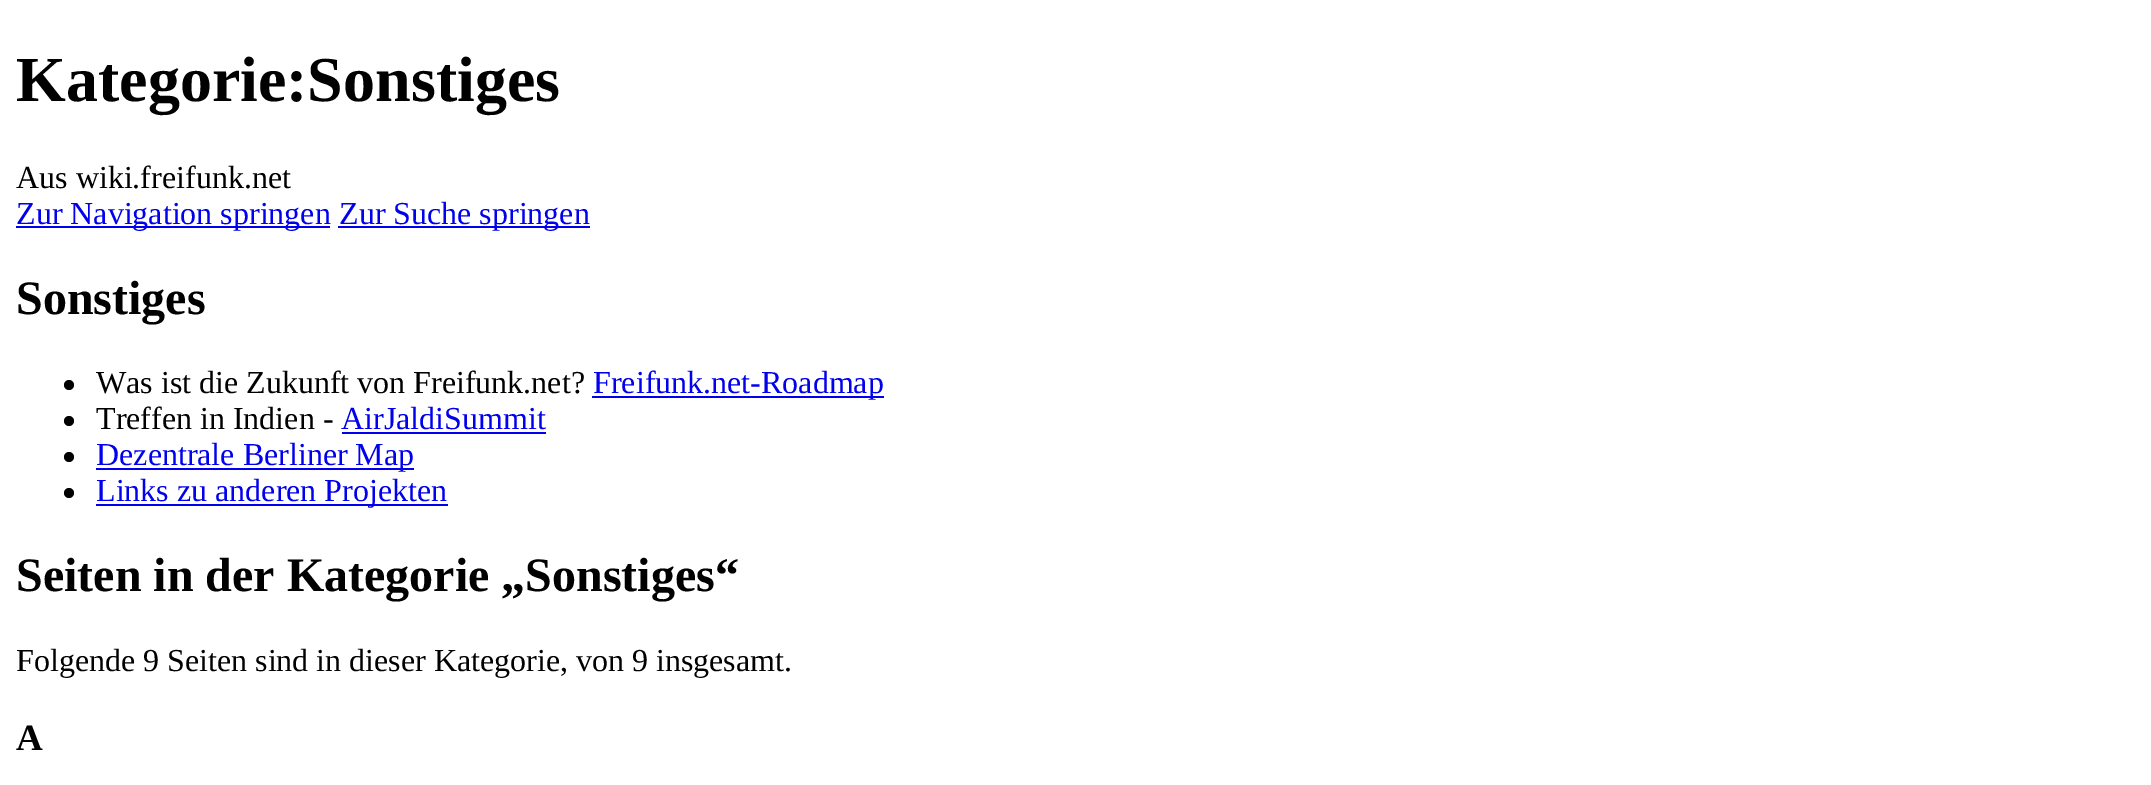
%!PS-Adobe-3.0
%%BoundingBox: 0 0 2151 785
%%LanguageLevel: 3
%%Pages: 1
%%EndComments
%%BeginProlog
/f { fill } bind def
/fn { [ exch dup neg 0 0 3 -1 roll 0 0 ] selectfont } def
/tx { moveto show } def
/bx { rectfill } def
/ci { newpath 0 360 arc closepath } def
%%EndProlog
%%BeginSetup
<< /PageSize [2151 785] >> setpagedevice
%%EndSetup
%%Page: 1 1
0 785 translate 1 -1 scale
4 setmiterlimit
1 setgray
0 0 2151 785 bx
/LiberationSerif-Bold 64 fn
0 setgray
(Kategorie:Sonstiges) 16 101 tx
/LiberationSerif-Regular 32 fn
(Aus wiki.freifunk.net) 16 188 tx
0 0 0.933 setrgbcolor
16 226 314 2 bx
(Zur Navigation springen) 16 224 tx
338 226 252 2 bx
(Zur Suche springen) 339 224 tx
/LiberationSerif-Bold 48 fn
0 setgray
(Sonstiges) 16 314 tx
69 385 5 ci f
/LiberationSerif-Regular 32 fn
(Was ist die Zukunft von Freifunk.net?) 96 393 tx
0 0 0.933 setrgbcolor
592 396 292 2 bx
(Freifunk.net-Roadmap) 593 393 tx
0 setgray
69 421 5 ci f
(Treffen in Indien -) 96 429 tx
0 0 0.933 setrgbcolor
(AirJaldiSummit) 341 429 tx
342 432 204 2 bx
0 setgray
69 457 5 ci f
0 0 0.933 setrgbcolor
96 468 318 2 bx
(Dezentrale Berliner Map) 96 465 tx
0 setgray
69 493 5 ci f
0 0 0.933 setrgbcolor
96 504 352 2 bx
(Links zu anderen Projekten) 96 501 tx
/LiberationSerif-Bold 48 fn
0 setgray
(Seiten in der Kategorie „Sonstiges“) 16 591 tx
/LiberationSerif-Regular 32 fn
(Folgende 9 Seiten sind in dieser Kategorie, von 9 insgesamt.) 16 671 tx
/LiberationSerif-Bold 37 fn
(A) 16 750 tx
showpage
%%EOF
